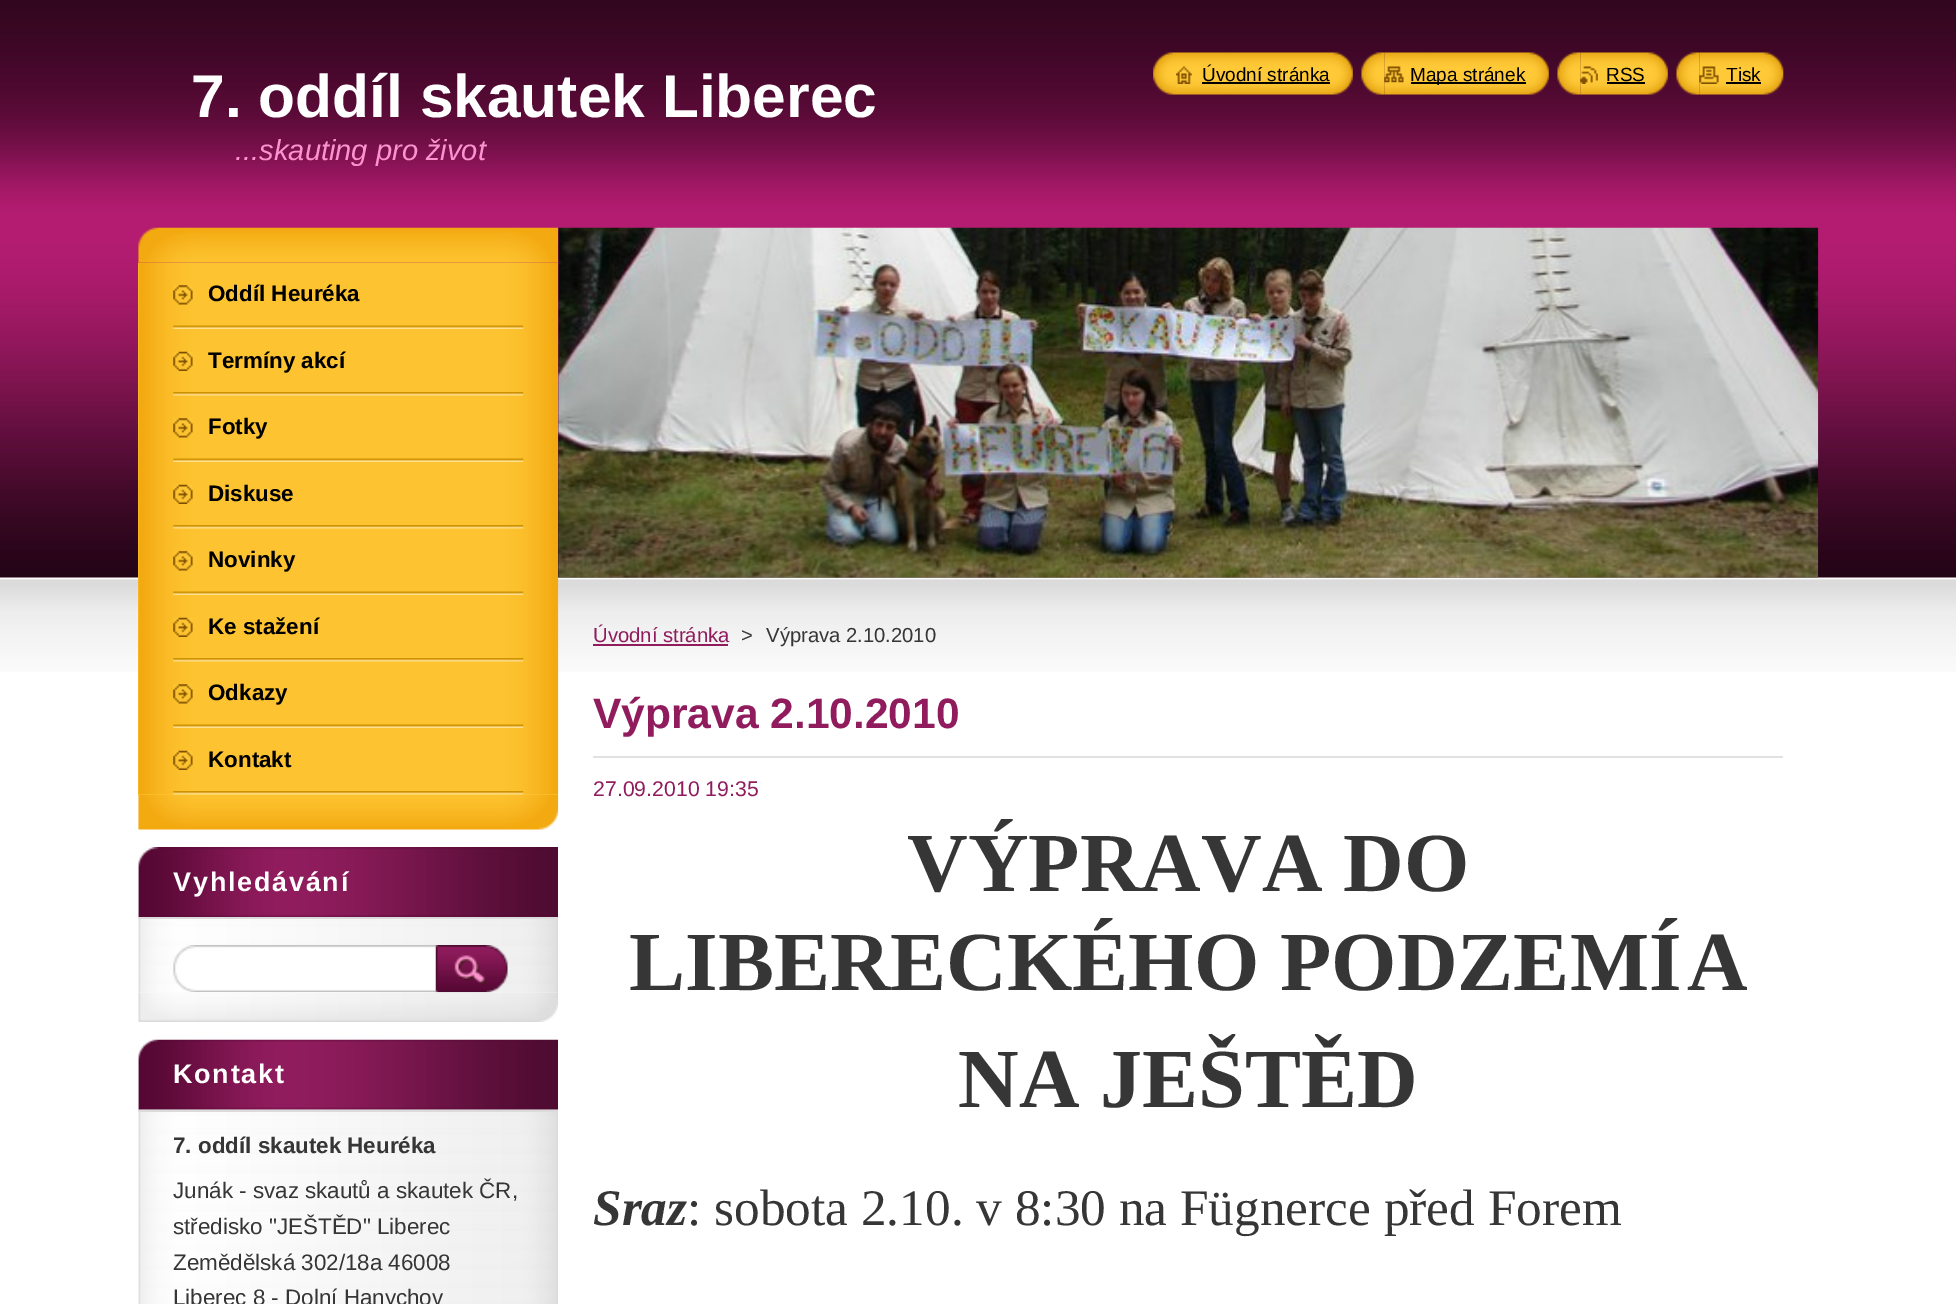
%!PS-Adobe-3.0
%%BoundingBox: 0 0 1956 1304
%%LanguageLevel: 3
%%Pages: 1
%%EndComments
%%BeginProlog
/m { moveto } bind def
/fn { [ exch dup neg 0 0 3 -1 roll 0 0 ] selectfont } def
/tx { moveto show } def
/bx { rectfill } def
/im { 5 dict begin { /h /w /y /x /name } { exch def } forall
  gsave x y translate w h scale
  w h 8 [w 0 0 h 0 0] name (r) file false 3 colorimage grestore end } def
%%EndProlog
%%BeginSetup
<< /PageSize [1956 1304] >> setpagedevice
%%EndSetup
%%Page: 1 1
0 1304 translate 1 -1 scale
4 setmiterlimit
1 setgray
0 0 1956 1304 bx
(image0.raw) 0 0 1956 672 im
/LiberationSans-Bold 60.5 fn
(7. oddíl skautek Liberec) 191 117 tx
/LiberationSans-Italic 29.1 fn
0.988 0.576 0.808 setrgbcolor
(...skauting pro život) 235 160 tx
(image1.raw) 1153 52 23 43 im
(image2.raw) 1176 52 177 43 im
(image3.raw) 1176 66 16 18 im
/LiberationSans-Regular 19 fn
0 setgray
(Úvodní stránka) 1202 81 tx
1202 82 128 2 bx
(image4.raw) 1361 52 24 43 im
(image5.raw) 1384 52 165 43 im
(image6.raw) 1384 66 20 17 im
1411 82 115 2 bx
(Mapa stránek) 1410 81 tx
(image7.raw) 1557 52 24 43 im
(image8.raw) 1580 52 88 43 im
(image9.raw) 1580 66 18 18 im
(RSS) 1606 81 tx
1607 82 38 2 bx
(image4.raw) 1676 52 24 43 im
(image10.raw) 1699 52 85 43 im
(image11.raw) 1699 66 20 18 im
(Tisk) 1726 81 tx
1726 82 35 2 bx
(image12.raw) 138 227 421 36 im
(image13.raw) 138 794 421 36 im
1 0.788 0.216 setrgbcolor
138 263 420 532 bx
(image14.raw) 138 262 421 533 im
(image15.raw) 173 325 351 4 im
(image16.raw) 173 285 20 20 im
/LiberationSans-Bold 22.4 fn
0 setgray
(Oddíl Heuréka) 208 301 tx
(image17.raw) 173 392 351 4 im
(image18.raw) 173 351 20 20 im
(Termíny akcí) 208 368 tx
(image15.raw) 173 458 351 4 im
(image16.raw) 173 418 20 20 im
(Fotky) 208 434 tx
(image17.raw) 173 525 351 4 im
(image18.raw) 173 484 20 20 im
(Diskuse) 208 501 tx
(image15.raw) 173 591 351 4 im
(image16.raw) 173 551 20 20 im
(Novinky) 208 567 tx
(image17.raw) 173 658 351 4 im
(image18.raw) 173 617 20 20 im
(Ke stažení) 208 634 tx
(image15.raw) 173 724 351 4 im
(image16.raw) 173 684 20 20 im
(Odkazy) 208 700 tx
(image19.raw) 173 791 351 4 im
(image18.raw) 173 750 20 20 im
(Kontakt) 208 767 tx
(image20.raw) 138 992 420 30 im
(image21.raw) 138 847 420 70 im
/LiberationSans-Bold 27 fn
1 setgray
173 891 m 1.75 0 (Vyhledávání) ashow
(image22.raw) 138 919 420 73 im
0.859 setgray
138 917 420 2 bx
(image23.raw) 173 945 263 47 im
(image24.raw) 435 945 73 48 im
(image26.raw) 138 1109 420 195 im
(image25.raw) 138 1039 420 71 im
1 setgray
173 1083 m 1.75 0 (Kontakt) ashow
0.859 setgray
138 1110 420 2 bx
/LiberationSans-Bold 22.4 fn
0.212 setgray
(7. oddíl skautek Heuréka) 173 1153 tx
/LiberationSans-Regular 22.4 fn
(Junák - svaz skautů a skautek ČR,) 173 1198 tx
(středisko "JEŠTĚD" Liberec) 173 1234 tx
(Zemědělská 302/18a 46008) 173 1270 tx
(Liberec 8 - Dolní Hanychov) 173 1305 tx
(image27.raw) 558 227 1261 351 im
/LiberationSans-Regular 20.25 fn
0.565 0.11 0.365 setrgbcolor
(Úvodní stránka) 593 642 tx
593 644 135 2 bx
0.212 setgray
(>) 741 642 tx
(Výprava 2.10.2010) 766 642 tx
0.882 setgray
593 756 1190 2 bx
/LiberationSans-Bold 42.5 fn
0.565 0.11 0.365 setrgbcolor
(Výprava 2.10.2010) 593 728 tx
/LiberationSans-Regular 21.25 fn
(27.09.2010 19:35) 593 796 tx
/LiberationSerif-Bold 84 fn
0.212 setgray
(VÝPRAVA DO) 907 891 tx
(LIBERECKÉHO PODZEMÍ) 629 990 tx
(A) 1687 990 tx
(NA JEŠTĚD) 958 1107 tx
/LiberationSerif-BoldItalic 51.3 fn
(Sraz) 593 1225 tx
/LiberationSerif-Regular 51.3 fn
(: sobota 2.10. v 8:30 na Fügnerce před Forem) 687 1225 tx
showpage
%%EOF
